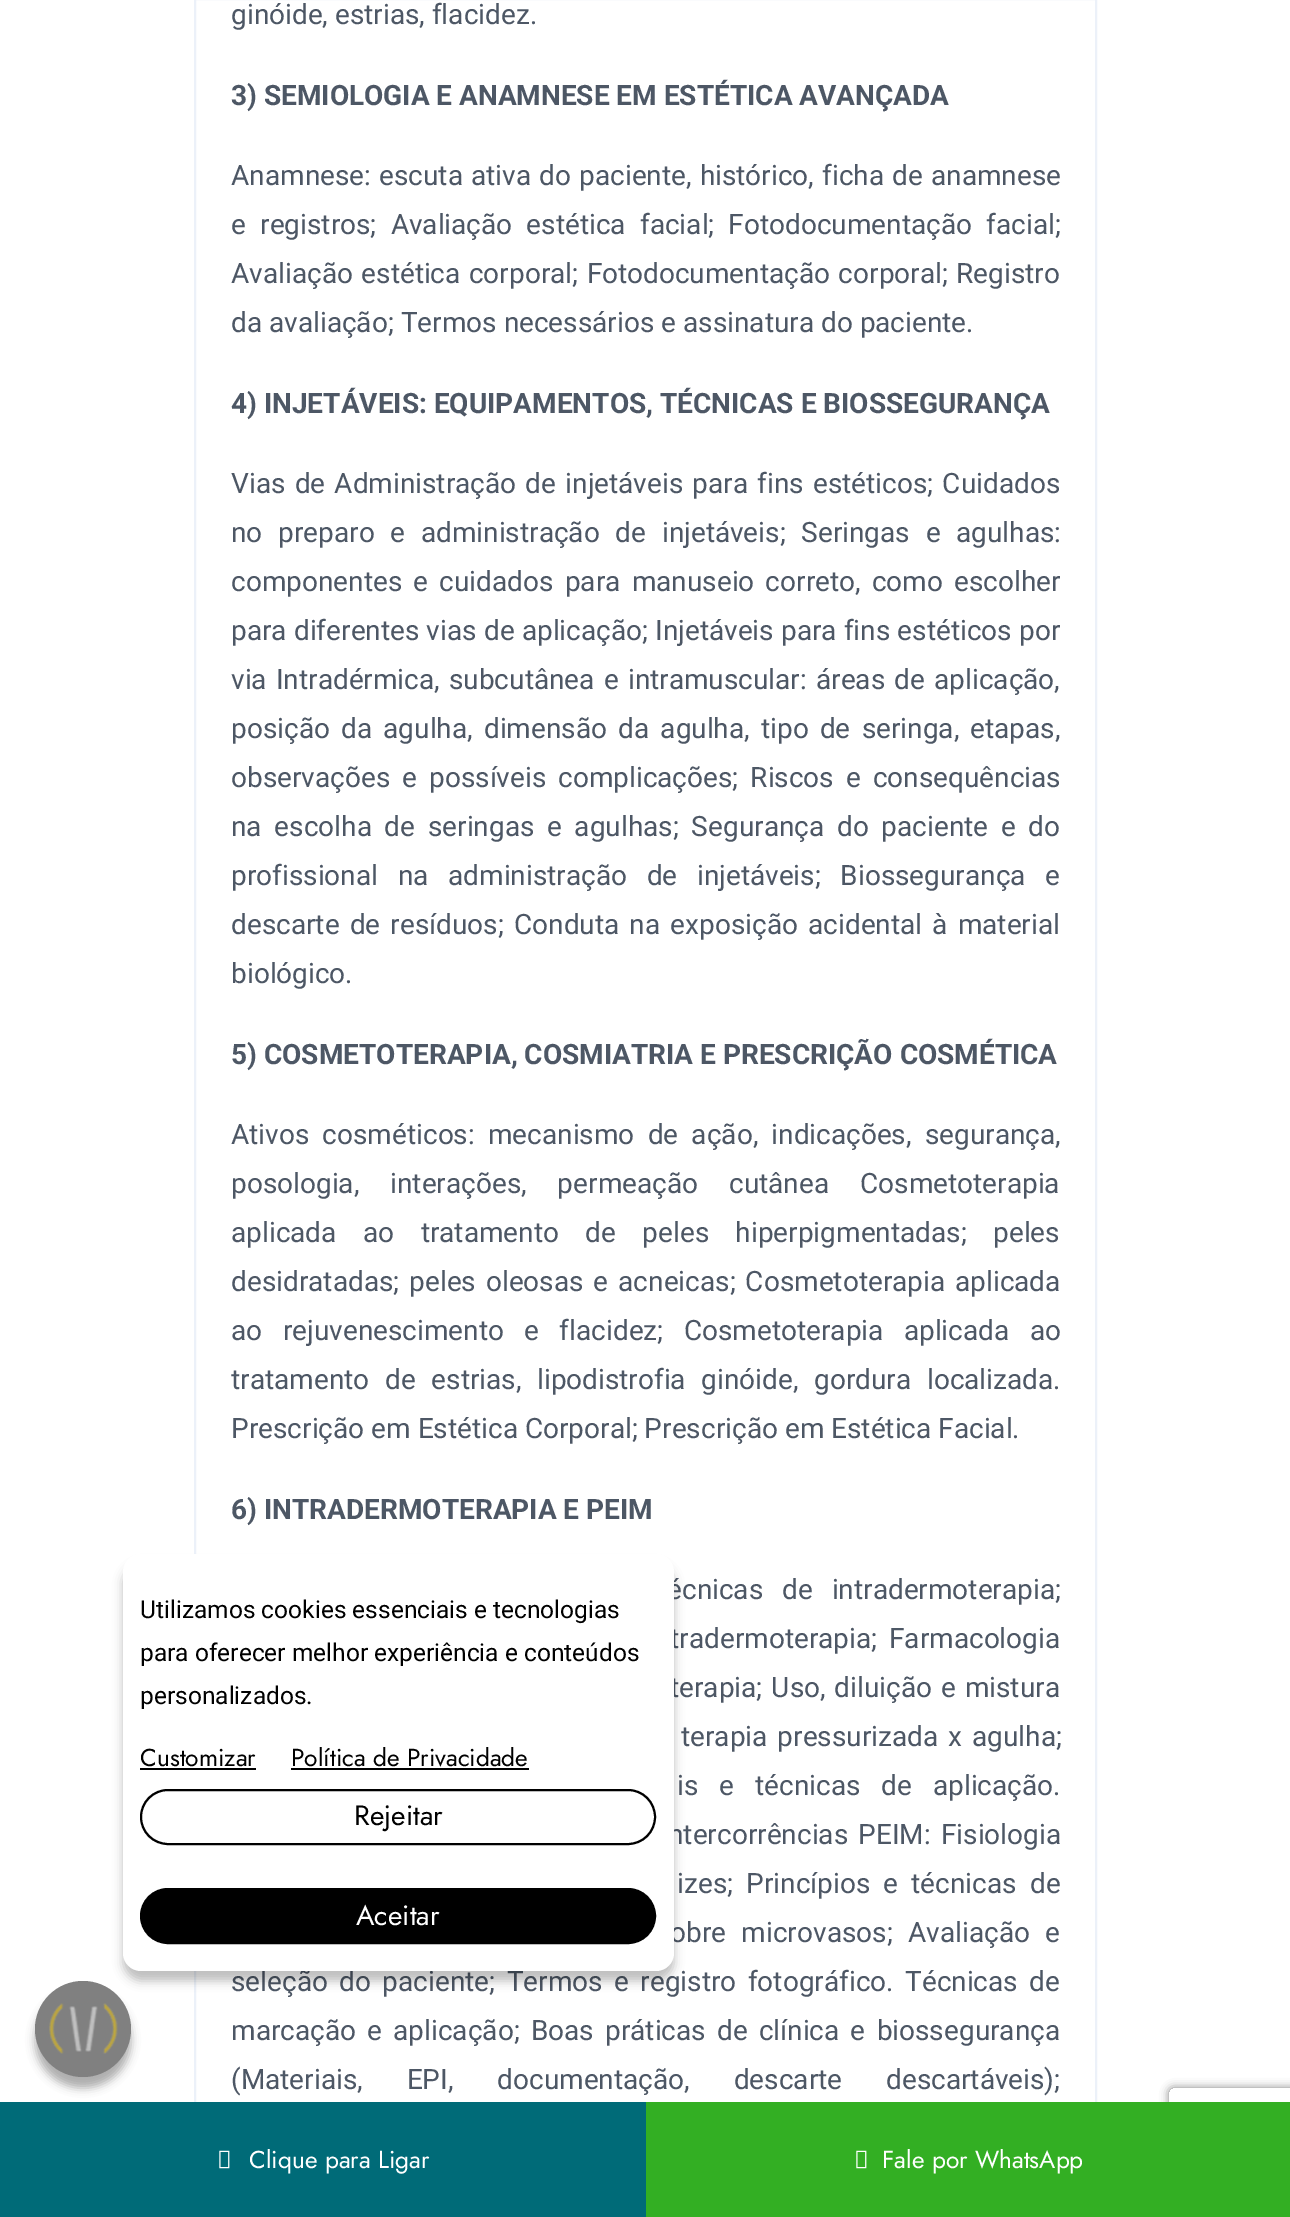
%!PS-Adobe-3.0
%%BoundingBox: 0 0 1290 2217
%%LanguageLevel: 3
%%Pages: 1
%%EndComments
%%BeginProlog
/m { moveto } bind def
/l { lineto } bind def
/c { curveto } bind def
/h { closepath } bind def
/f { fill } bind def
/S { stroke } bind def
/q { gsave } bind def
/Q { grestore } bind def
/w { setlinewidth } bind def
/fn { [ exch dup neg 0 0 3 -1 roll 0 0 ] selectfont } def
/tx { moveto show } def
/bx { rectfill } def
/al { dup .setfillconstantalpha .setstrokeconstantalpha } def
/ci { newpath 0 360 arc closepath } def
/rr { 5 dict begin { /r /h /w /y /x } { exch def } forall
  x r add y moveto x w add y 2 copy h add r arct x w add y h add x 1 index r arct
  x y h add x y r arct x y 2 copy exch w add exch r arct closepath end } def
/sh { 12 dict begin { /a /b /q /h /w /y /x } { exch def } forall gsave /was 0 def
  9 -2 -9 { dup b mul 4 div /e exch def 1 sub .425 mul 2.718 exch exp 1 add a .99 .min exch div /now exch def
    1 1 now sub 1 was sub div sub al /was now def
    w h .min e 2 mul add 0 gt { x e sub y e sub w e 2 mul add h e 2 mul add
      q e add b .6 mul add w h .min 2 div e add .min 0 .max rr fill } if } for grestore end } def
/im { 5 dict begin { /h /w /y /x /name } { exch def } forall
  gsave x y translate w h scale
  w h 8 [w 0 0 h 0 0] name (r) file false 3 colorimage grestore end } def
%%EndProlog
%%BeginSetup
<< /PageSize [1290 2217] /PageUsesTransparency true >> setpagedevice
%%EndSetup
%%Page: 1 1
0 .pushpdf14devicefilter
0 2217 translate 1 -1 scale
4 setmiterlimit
1 setgray
0 0 1290 2217 bx
0.925 0.945 0.976 setrgbcolor
2 w
195 -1 901 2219 rectstroke
/Roboto-Regular 28 fn
0.302 0.341 0.396 setrgbcolor
(ginóide, estrias, flacidez.) 231 24 tx
/Roboto-Bold 28 fn
(3\) SEMIOLOGIA E ANAMNESE EM ESTÉTICA AVANÇADA) 231 105 tx
/Roboto-Regular 28 fn
231 185 m 1.25 0 32 (Anamnese: escuta ativa do paciente, histórico, ficha de anamnese) widthshow
231 234 m 7.25 0 32 (e registros; Avaliação estética facial; Fotodocumentação facial;) widthshow
231 283 m 1.5 0 32 (Avaliação estética corporal; Fotodocumentação corporal; Registro) widthshow
(da avaliação; Termos necessários e assinatura do paciente.) 231 332 tx
/Roboto-Bold 28 fn
(4\) INJETÁVEIS: EQUIPAMENTOS, TÉCNICAS E BIOSSEGURANÇA) 231 413 tx
/Roboto-Regular 28 fn
231 493 m 2.25 0 32 (Vias de Administração de injetáveis para fins estéticos; Cuidados) widthshow
231 542 m 8.75 0 32 (no preparo e administração de injetáveis; Seringas e agulhas:) widthshow
231 591 m 4.25 0 32 (componentes e cuidados para manuseio correto, como escolher) widthshow
231 640 m 0.25 0 32 (para diferentes vias de aplicação; Injetáveis para fins estéticos por) widthshow
231 689 m 2.25 0 32 (via Intradérmica, subcutânea e intramuscular: áreas de aplicação,) widthshow
231 738 m 4.25 0 32 (posição da agulha, dimensão da agulha, tipo de seringa, etapas,) widthshow
231 787 m 5 0 32 (observações e possíveis complicações; Riscos e consequências) widthshow
231 836 m 5.75 0 32 (na escolha de seringas e agulhas; Segurança do paciente e do) widthshow
231 885 m 12.75 0 32 (profissional na administração de injetáveis; Biossegurança e) widthshow
231 934 m 3.25 0 32 (descarte de resíduos; Conduta na exposição acidental à material) widthshow
(biológico.) 231 983 tx
/Roboto-Bold 28 fn
(5\) COSMETOTERAPIA, COSMIATRIA E PRESCRIÇÃO COSMÉTICA) 231 1064 tx
/Roboto-Regular 28 fn
231 1144 m 6.25 0 32 (Ativos cosméticos: mecanismo de ação, indicações, segurança,) widthshow
231 1193 m 24 0 32 (posologia, interações, permeação cutânea Cosmetoterapia) widthshow
231 1242 m 19.5 0 32 (aplicada ao tratamento de peles hiperpigmentadas; peles) widthshow
231 1291 m 3 0 32 (desidratadas; peles oleosas e acneicas; Cosmetoterapia aplicada) widthshow
231 1340 m 13.5 0 32 (ao rejuvenescimento e flacidez; Cosmetoterapia aplicada ao) widthshow
231 1389 m 8.75 0 32 (tratamento de estrias, lipodistrofia ginóide, gordura localizada.) widthshow
(Prescrição em Estética Corporal; Prescrição em Estética Facial.) 231 1438 tx
/Roboto-Bold 28 fn
(6\) INTRADERMOTERAPIA E PEIM) 231 1519 tx
/Roboto-Regular 28 fn
667 1599 m 12 0 32 (écnicas de intradermoterapia;) widthshow
670 1648 m 5 0 32 (tradermoterapia; Farmacologia) widthshow
670 1697 m 2 0 32 (terapia; Uso, diluição e mistura) widthshow
681 1746 m 3 0 32 (terapia pressurizada x agulha;) widthshow
677 1795 m 14 0 32 (is e técnicas de aplicação.) widthshow
668 1844 m 3.25 0 32 (ntercorrências PEIM: Fisiologia) widthshow
677 1893 m 6.25 0 32 (izes; Princípios e técnicas de) widthshow
670 1942 m 8.5 0 32 (obre microvasos; Avaliação e) widthshow
231 1991 m 4.5 0 32 (seleção do paciente; Termos e registro fotográfico. Técnicas de) widthshow
231 2040 m 4.25 0 32 (marcação e aplicação; Boas práticas de clínica e biossegurança) widthshow
231 2089 m 37 0 32 (\(Materiais, EPI, documentação, descarte descartáveis\);) widthshow
0 0.42 0.471 setrgbcolor
0 2102 646 115 bx
0.675 setgray
35 1992 96 96 48 4.5 1 sh
0.502 setgray
83 2029 48 ci f
0 setgray
123 1565 551 416 18 5 0.25 sh
1 setgray
123 1554 551 417 18 rr f
/Roboto-Regular 24.5 fn
0 setgray
(Utilizamos cookies essenciais e tecnologias) 140 1618 tx
(para oferecer melhor experiência e conteúdos) 140 1661 tx
(personalizados.) 140 1704 tx
/Jost-Regular 24.5 fn
(Customizar) 140 1766 tx
140 1768 116 2 bx
(Política de Privacidade) 291 1766 tx
291 1768 238 2 bx
141 1790 514 54 27 rr S
/Jost-Regular 28 fn
(Rejeitar) 354 1825 tx
141 1889 514 54 27 rr q f Q
S
1 setgray
(Aceitar) 356 1925 tx
(image0.raw) 49 2003 69 51 im
(image1.raw) 219 2150 11 19 im
/Jost-Regular 24.5 fn
(Clique para Ligar) 249 2168 tx
q
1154 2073 m 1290 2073 l 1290 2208 l 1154 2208 l h 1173 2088 m 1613 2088 l 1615 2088 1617 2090 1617 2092 c 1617 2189 l 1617 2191 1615 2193 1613 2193 c 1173 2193 l 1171 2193 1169 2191 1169 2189 c 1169 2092 l 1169 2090 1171 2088 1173 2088 c h eoclip newpath
0.502 setgray
1169 2088 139 105 4 4.5 1 sh
Q
0.2 0.686 0.137 setrgbcolor
646 2102 644 115 bx
(image2.raw) 856 2150 11 19 im
1 setgray
(Fale por WhatsApp) 882 2168 tx
.poppdf14devicefilter showpage
%%EOF
